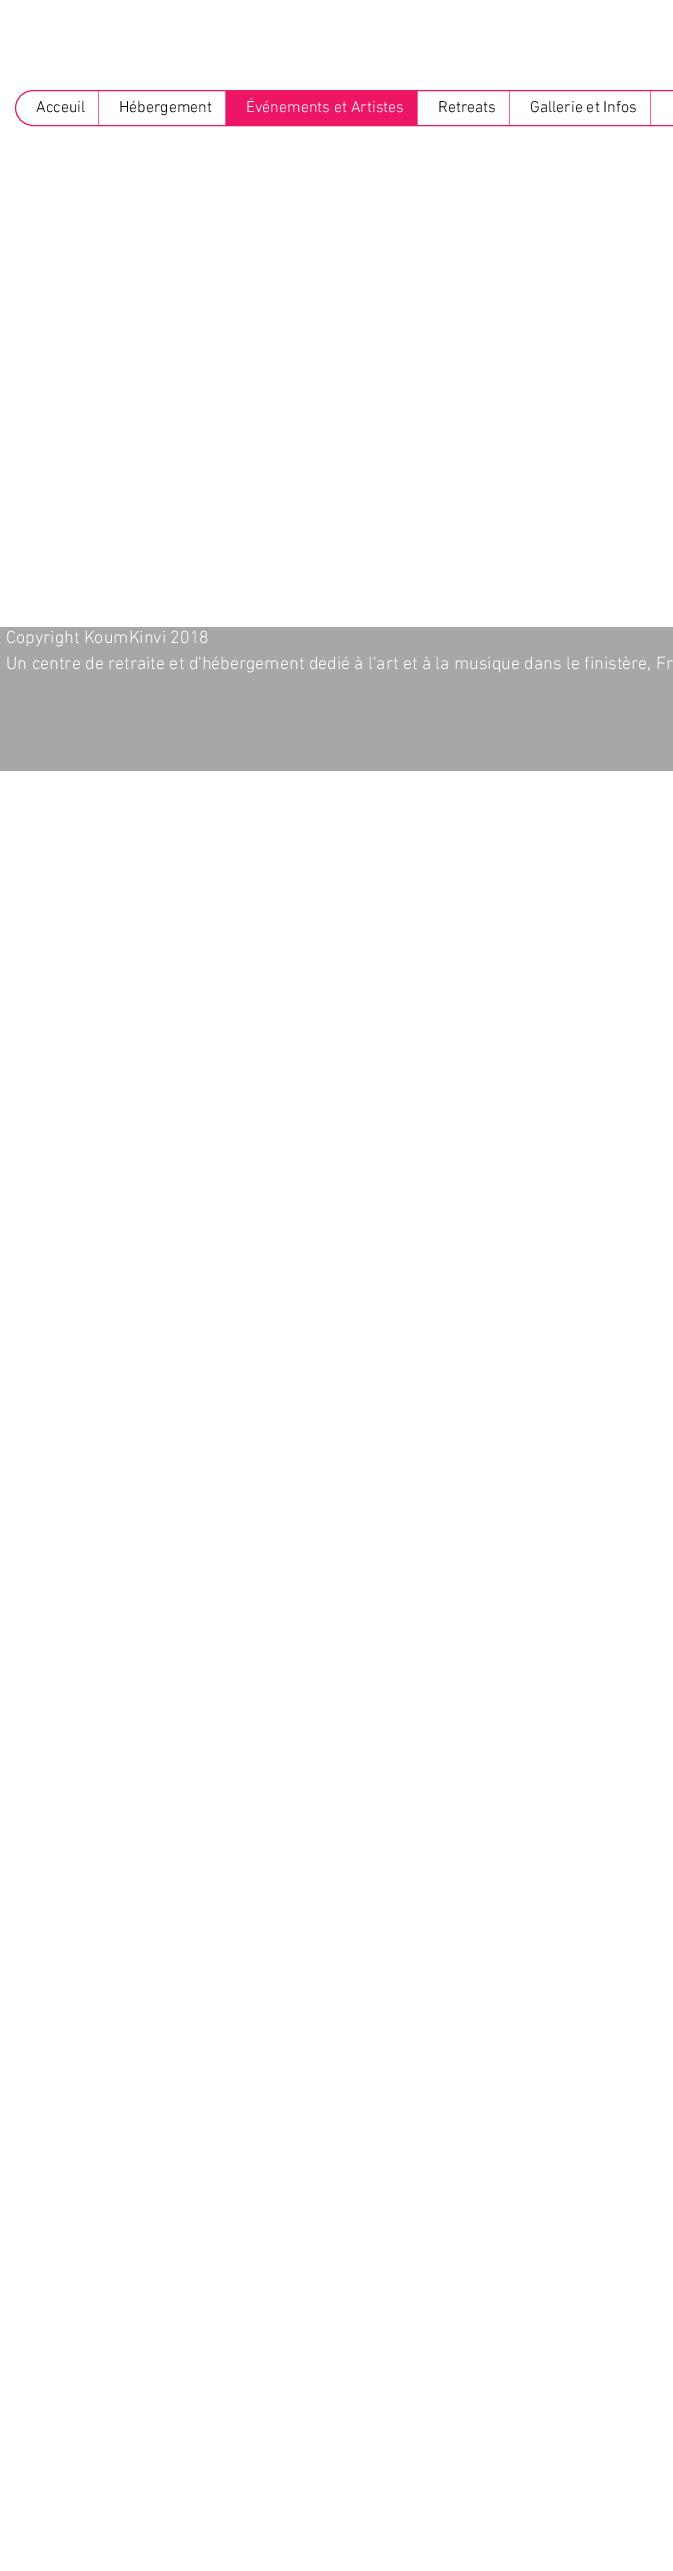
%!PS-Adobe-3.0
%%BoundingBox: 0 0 673 2571
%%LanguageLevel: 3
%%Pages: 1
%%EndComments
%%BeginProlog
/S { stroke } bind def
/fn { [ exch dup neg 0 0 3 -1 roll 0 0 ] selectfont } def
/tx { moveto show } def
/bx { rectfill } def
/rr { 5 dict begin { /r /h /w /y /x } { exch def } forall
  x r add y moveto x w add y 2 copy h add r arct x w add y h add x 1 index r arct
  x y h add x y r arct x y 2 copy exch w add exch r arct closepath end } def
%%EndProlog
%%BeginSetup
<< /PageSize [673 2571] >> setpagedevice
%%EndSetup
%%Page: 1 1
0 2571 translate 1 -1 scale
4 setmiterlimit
1 setgray
0 0 673 2571 bx
0.929 0.082 0.4 setrgbcolor
15.5 90.5 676 35 17.5 rr S
/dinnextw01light-Light 16 fn
0 setgray
(Acceuil) 36 112 tx
0.949 0.4 0.561 setrgbcolor
98 91 1 34 bx
0 setgray
(Hébergement) 119 112 tx
0.929 0.082 0.4 setrgbcolor
226 91 191 34 bx
0.949 0.4 0.561 setrgbcolor
225 91 1 34 bx
1 setgray
(Événements et Artistes) 246 112 tx
0.949 0.4 0.561 setrgbcolor
417 91 1 34 bx
0 setgray
(Retreats) 438 112 tx
0.949 0.4 0.561 setrgbcolor
509 91 1 34 bx
0 setgray
(Gallerie et Infos) 530 112 tx
0.949 0.4 0.561 setrgbcolor
650 91 1 34 bx
0.655 setgray
0 627 673 144 bx
/dinnextw01light-Light 18 fn
1 setgray
(Copyright KoumKinvi 2018) 6 643 tx
(Un centre de retraite et d'hébergement dedié à l'art et à la musique dans le finistère, Fr) 6 669 tx
showpage
%%EOF
